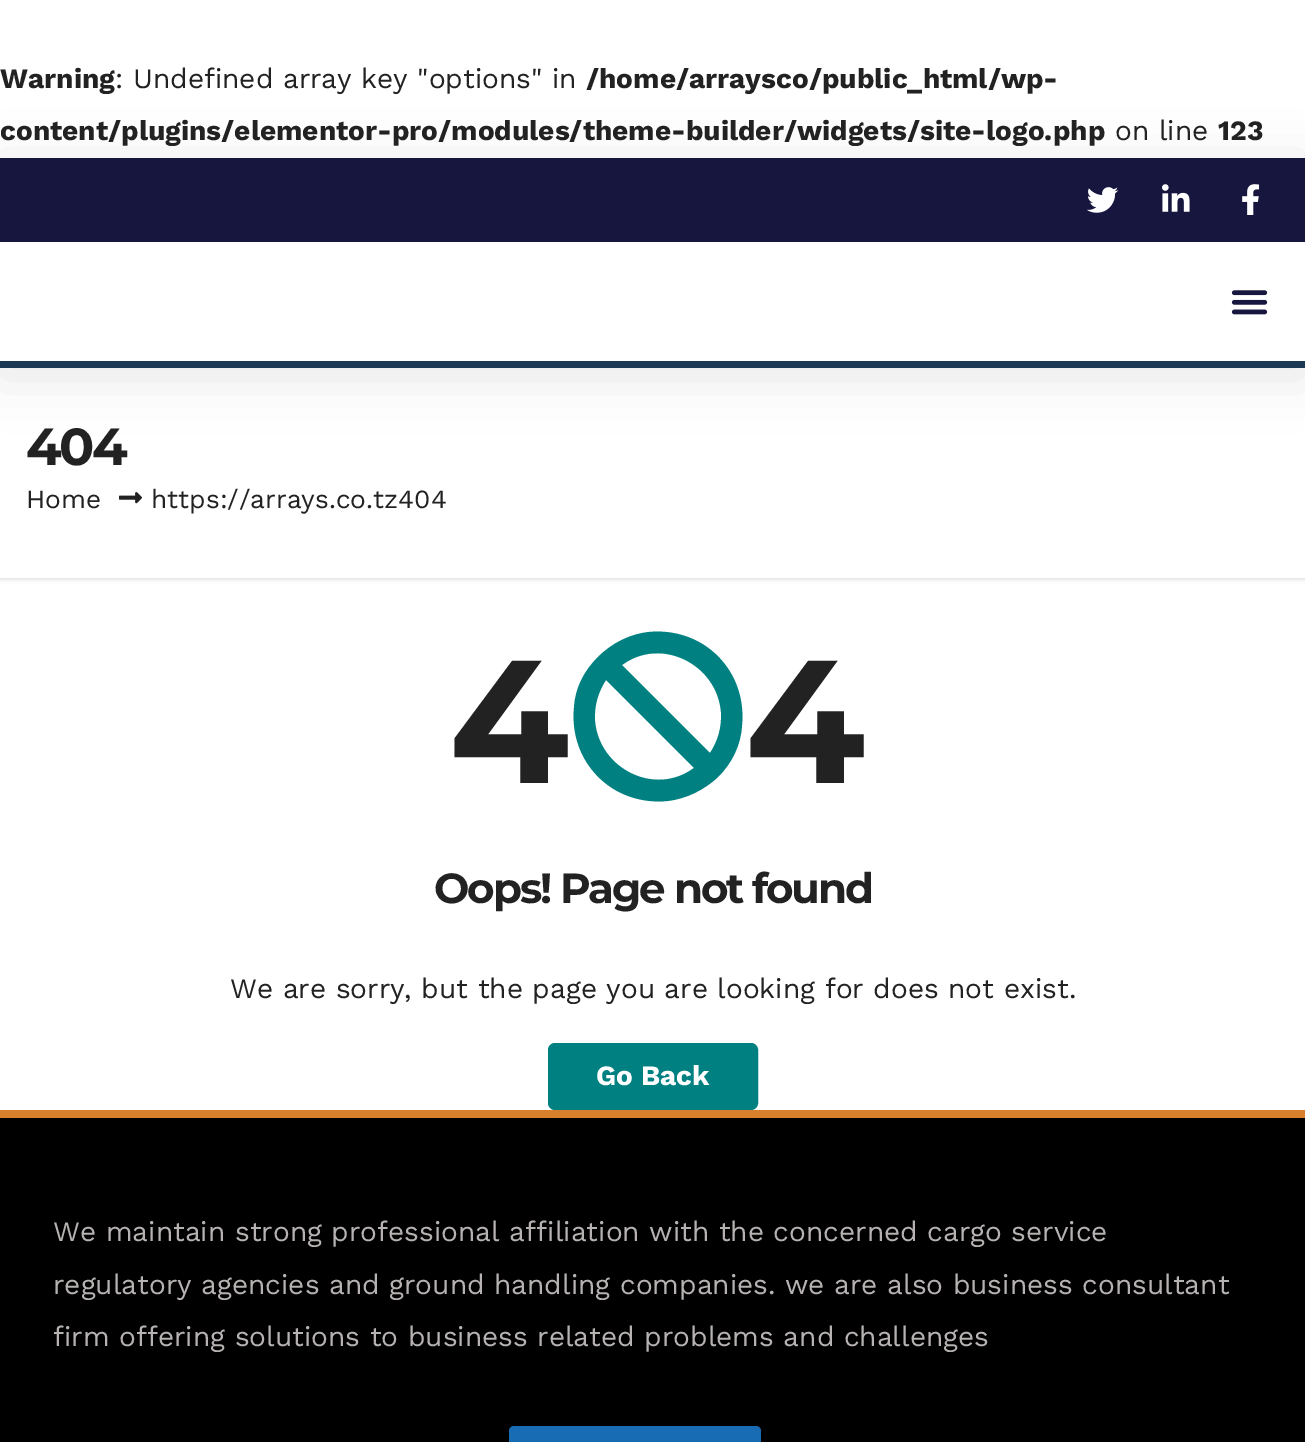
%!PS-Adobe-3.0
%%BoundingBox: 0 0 1305 1442
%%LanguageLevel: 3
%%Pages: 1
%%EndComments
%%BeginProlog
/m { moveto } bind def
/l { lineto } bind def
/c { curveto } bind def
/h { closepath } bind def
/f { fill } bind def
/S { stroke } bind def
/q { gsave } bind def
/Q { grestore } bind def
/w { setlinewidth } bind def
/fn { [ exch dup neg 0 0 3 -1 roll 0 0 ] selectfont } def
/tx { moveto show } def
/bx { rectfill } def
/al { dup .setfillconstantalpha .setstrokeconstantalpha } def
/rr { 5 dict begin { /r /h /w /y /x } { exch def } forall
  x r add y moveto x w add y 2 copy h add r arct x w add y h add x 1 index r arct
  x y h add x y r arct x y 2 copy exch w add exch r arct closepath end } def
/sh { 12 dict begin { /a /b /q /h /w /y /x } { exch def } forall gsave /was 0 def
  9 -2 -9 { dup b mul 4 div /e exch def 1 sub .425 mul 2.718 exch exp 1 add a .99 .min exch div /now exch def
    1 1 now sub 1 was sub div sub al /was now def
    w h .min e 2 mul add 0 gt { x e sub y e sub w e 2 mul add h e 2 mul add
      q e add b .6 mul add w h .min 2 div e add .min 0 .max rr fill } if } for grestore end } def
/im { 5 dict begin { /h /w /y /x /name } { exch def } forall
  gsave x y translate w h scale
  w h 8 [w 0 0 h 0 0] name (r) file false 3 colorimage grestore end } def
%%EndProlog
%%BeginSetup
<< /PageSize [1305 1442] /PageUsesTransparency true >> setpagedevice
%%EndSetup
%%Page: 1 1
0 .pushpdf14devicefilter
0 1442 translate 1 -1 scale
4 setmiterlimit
1 setgray
0 0 1305 1442 bx
/WorkSans-Bold 28 fn
0.133 setgray
(Warning) 0 88 tx
/WorkSans-Regular 28 fn
(: Undefined array key "options" in) 115 88 tx
/WorkSans-Bold 28 fn
(/home/arraysco/public_html/wp-) 586 88 tx
0 setgray
0 369 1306 210 0 2.5 0.15 sh
1 setgray
0 368 1305 210 bx
q
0 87 m 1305 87 l 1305 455 l 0 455 l h 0 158 m 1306 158 l 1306 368 l 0 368 l h eoclip newpath
0 setgray
0 166 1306 210 0 26 0.1 sh
Q
0.086 0.086 0.247 setrgbcolor
0 158 1305 84 bx
(image0.raw) 1087 187 32 26 im
(image1.raw) 1162 184 28 28 im
(image2.raw) 1242 184 18 31 im
0.106 0.224 0.333 setrgbcolor
0 361 1305 7 bx
(image3.raw) 1231 290 37 25 im
0.133 setgray
(content/plugins/elementor-pro/modules/theme-builder/widgets/site-logo.php) 0 140 tx
/WorkSans-Regular 28 fn
(on line) 1115 140 tx
/WorkSans-Bold 28 fn
(123) 1218 140 tx
/Montserrat-Bold 52 fn
26 465 m -2.5 0 (404) ashow
/WorkSans-Regular 26.25 fn
(Home) 26 508 tx
(image4.raw) 119 492 23 12 im
(https://arrays.co.tz404) 151 508 tx
/Montserrat-Bold 175 fn
449 783 m -9 0 (4) ashow
0 0.502 0.502 setrgbcolor
598 657 m 612 643 630 634 649 632 c 704 627 747 671 742 725 c 741 745 732 763 718 777 c 704 790 686 799 667 801 c 612 806 569 762 574 708 c 575 688 584 671 598 657 c h 721 712 m 717 664 661 636 622 665 c 710 753 l 718 741 722 727 721 712 c h 595 721 m 599 769 655 797 694 768 c 606 680 l 598 692 594 706 595 721 c h f
0.133 setgray
745 783 m -9 0 (4) ashow
/Montserrat-Bold 42 fn
434 903 m -2.1 0 (Oops! Page not found) ashow
/WorkSans-Regular 28 fn
(We are sorry, but the page you are looking for does not exist.) 230 998 tx
0 0.502 0.502 setrgbcolor
550 1045 206 63 5 rr q f Q
4 w
S
/WorkSans-Bold 28 fn
1 setgray
(Go Back) 596 1085 tx
0 setgray
0 1118 1305 324 bx
0.851 0.502 0.176 setrgbcolor
0 1110 1305 8 bx
/WorkSans-Regular 28 fn
0.718 0.698 0.698 setrgbcolor
(We maintain strong professional affiliation with the concerned cargo service) 53 1241 tx
(regulatory agencies and ground handling companies. we are also business consultant) 53 1294 tx
(firm offering solutions to business related problems and challenges) 53 1346 tx
0.09 0.424 0.702 setrgbcolor
509 1426 252 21 5 rr f
.poppdf14devicefilter showpage
%%EOF
